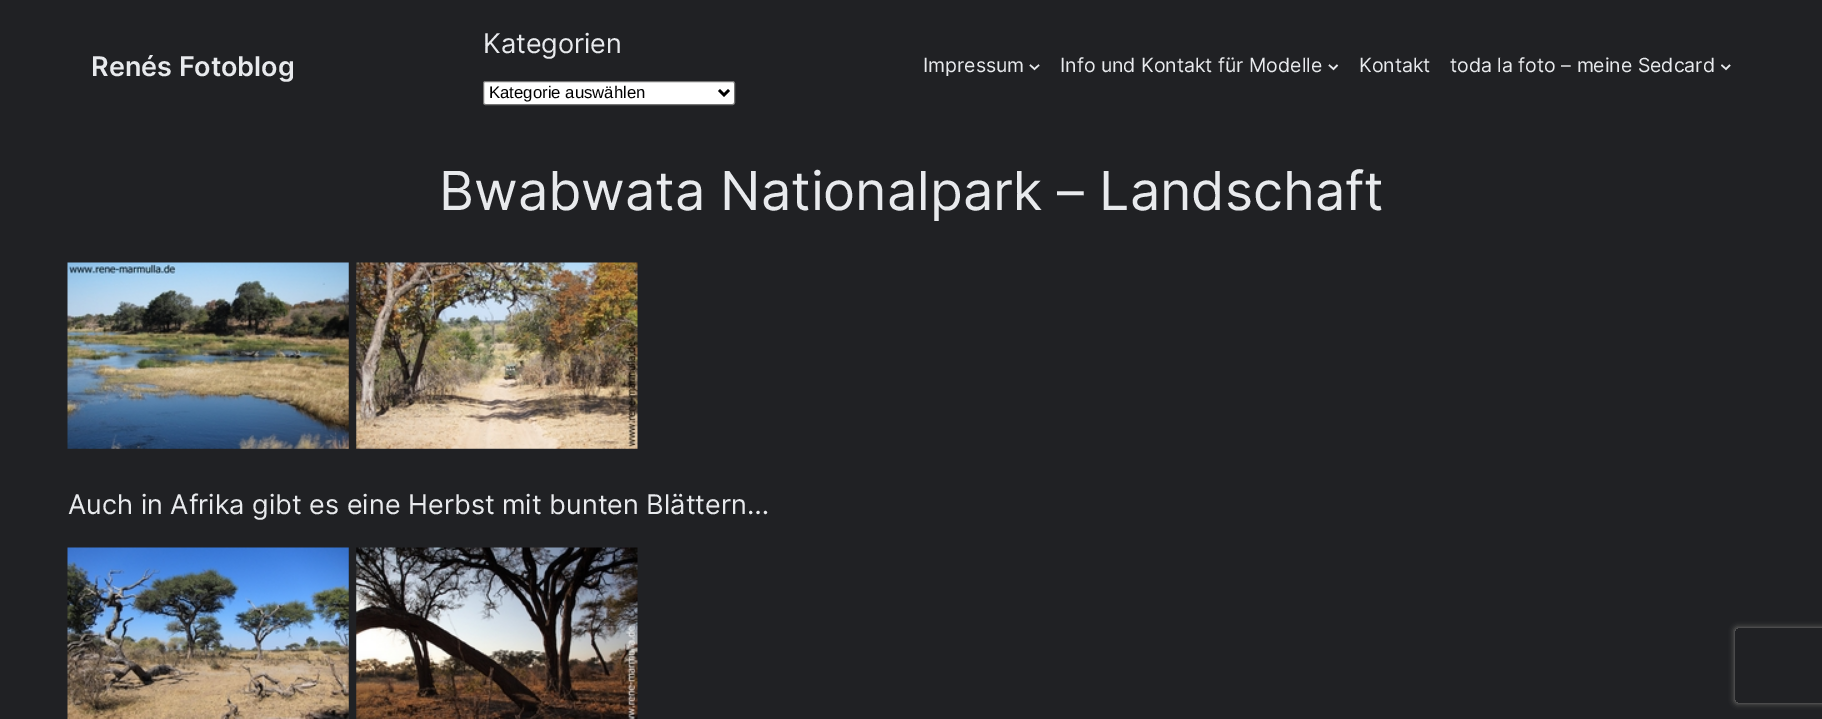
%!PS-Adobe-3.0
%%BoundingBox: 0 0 1822 719
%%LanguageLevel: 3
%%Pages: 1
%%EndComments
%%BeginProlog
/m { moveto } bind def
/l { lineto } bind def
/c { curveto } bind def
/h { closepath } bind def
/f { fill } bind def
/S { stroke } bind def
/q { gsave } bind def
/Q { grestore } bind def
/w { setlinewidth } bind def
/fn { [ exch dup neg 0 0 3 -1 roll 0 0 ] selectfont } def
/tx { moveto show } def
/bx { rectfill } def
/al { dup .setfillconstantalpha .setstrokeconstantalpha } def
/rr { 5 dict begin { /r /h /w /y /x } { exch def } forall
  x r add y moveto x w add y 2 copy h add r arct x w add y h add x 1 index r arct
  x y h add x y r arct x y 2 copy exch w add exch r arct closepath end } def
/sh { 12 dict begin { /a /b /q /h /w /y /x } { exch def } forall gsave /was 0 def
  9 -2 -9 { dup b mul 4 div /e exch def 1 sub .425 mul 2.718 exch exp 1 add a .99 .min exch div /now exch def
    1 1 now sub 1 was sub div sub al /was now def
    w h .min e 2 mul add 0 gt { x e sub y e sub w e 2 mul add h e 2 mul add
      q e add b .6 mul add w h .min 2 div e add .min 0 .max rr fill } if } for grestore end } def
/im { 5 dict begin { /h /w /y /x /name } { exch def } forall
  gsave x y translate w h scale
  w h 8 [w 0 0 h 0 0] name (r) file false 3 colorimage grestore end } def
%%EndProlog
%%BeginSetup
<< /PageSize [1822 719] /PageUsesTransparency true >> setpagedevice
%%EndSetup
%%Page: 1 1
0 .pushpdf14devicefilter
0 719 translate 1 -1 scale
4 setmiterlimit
0.125 0.129 0.141 setrgbcolor
0 0 1822 719 bx
/Inter-SemiBold 27 fn
0.91 0.918 0.929 setrgbcolor
(Renés Fotoblog) 91 76 tx
/Inter-Regular 27 fn
(Kategorien) 483 53 tx
1 setgray
483.5 81.5 251 23 2 rr q f Q
0.463 setgray
S
0 setgray
2.5 w
719 90 m 724 95 l 729 90 l S
/LiberationSans-Regular 16.75 fn
(Kategorie auswählen) 489 98 tx
/Inter-Regular 19.5 fn
0.91 0.918 0.929 setrgbcolor
(Impressum) 923 72 tx
1.5 w
1030 65 m 1034.5 69 l 1039 65 l S
(Info und Kontakt für Modelle) 1060 72 tx
1329 65 m 1333.5 69 l 1337.5 65 l S
(Kontakt) 1359 72 tx
(toda la foto – meine Sedcard) 1450 72 tx
1721.5 65 m 1726 69 l 1730 65 l S
/Inter-Regular 53.75 fn
(Bwabwata Nationalpark – Landschaft) 439 210 tx
(image0.raw) 67 262 282 187 im
(image1.raw) 356 262 282 187 im
/Inter-Regular 27 fn
(Auch in Afrika gibt es eine Herbst mit bunten Blättern…) 68 514 tx
(image2.raw) 67 547 282 172 im
(image3.raw) 356 547 282 172 im
q
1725 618 m 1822 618 l 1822 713 l 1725 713 l h 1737.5 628 m 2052.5 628 l 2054 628 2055 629 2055 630.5 c 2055 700.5 l 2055 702 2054 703 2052.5 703 c 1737.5 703 l 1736 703 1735 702 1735 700.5 c 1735 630.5 l 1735 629 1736 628 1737.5 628 c h eoclip newpath
0.502 setgray
1735 628 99 75 2.5 3 1 sh
Q
.poppdf14devicefilter showpage
%%EOF
